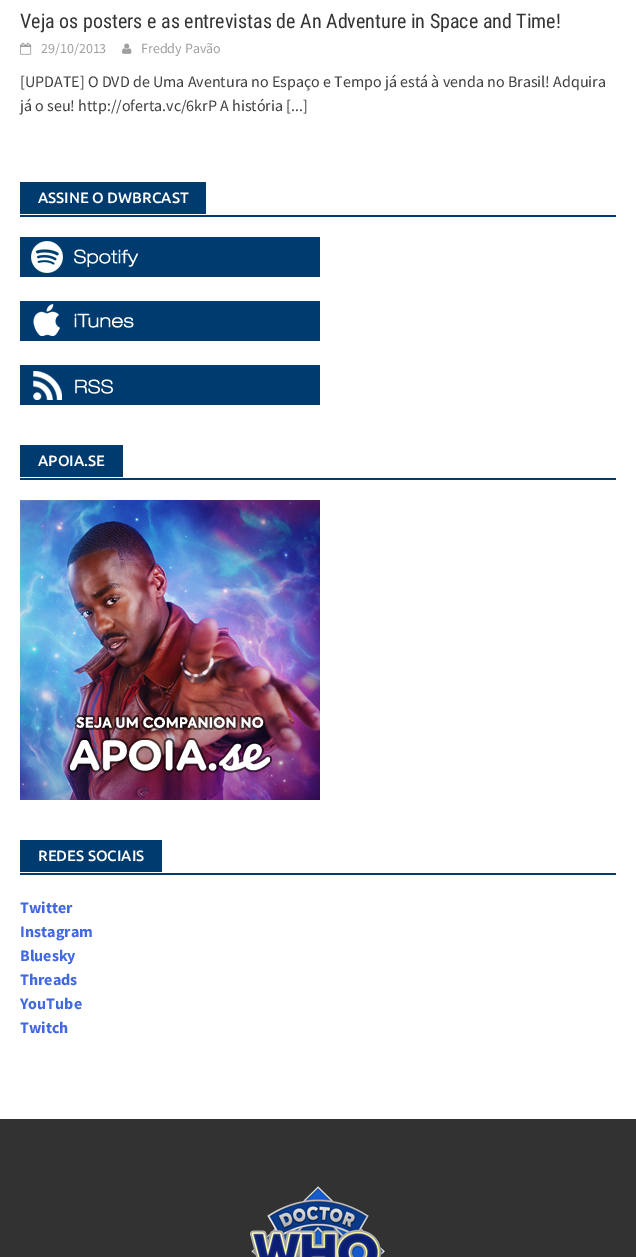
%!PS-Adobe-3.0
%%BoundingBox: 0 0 636 1257
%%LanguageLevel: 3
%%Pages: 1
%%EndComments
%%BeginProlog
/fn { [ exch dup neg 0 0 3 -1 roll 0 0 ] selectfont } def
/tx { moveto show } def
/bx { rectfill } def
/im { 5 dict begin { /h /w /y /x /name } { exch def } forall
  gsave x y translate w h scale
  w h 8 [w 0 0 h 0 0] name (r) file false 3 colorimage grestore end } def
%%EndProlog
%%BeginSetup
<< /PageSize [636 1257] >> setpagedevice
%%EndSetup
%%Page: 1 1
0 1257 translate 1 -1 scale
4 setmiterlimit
1 setgray
0 0 636 1257 bx
/RobotoCondensed-Regular 20 fn
0.208 0.204 0.204 setrgbcolor
(Veja os posters e as entrevistas de An Adventure in Space and Time!) 20 28 tx
(image0.raw) 20 42 12 13 im
/SourceSansPro-Regular 14 fn
0.624 setgray
(29/10/2013) 41 53 tx
(image1.raw) 122 43 10 11 im
(Freddy Pavão) 141 53 tx
/SourceSansPro-Regular 16 fn
0.251 setgray
([UPDATE] O DVD de Uma Aventura no Espaço e Tempo já está à venda no Brasil! Adquira) 20 87 tx
(já o seu! http://oferta.vc/6krP A história [...]) 20 111 tx
0 0.231 0.435 setrgbcolor
20 215 596 2 bx
20 182 186 32 bx
/Ubuntu-Medium 15 fn
1 setgray
(ASSINE O DWBRCAST) 38 203 tx
(image2.raw) 20 237 300 40 im
(image3.raw) 20 301 300 40 im
(image4.raw) 20 365 300 40 im
0 0.231 0.435 setrgbcolor
20 478 596 2 bx
20 445 103 32 bx
1 setgray
(APOIA.SE) 38 466 tx
(image5.raw) 20 500 300 300 im
0 0.231 0.435 setrgbcolor
20 873 596 2 bx
20 840 142 32 bx
1 setgray
(REDES SOCIAIS) 38 861 tx
/SourceSansPro-Bold 16 fn
0.255 0.412 0.882 setrgbcolor
(Twitter) 20 913 tx
(Instagram) 20 937 tx
(Bluesky) 20 961 tx
(Threads) 20 985 tx
(YouTube) 20 1009 tx
(Twitch) 20 1033 tx
0.196 setgray
0 1119 636 138 bx
(image6.raw) 249 1186 137 71 im
showpage
%%EOF
